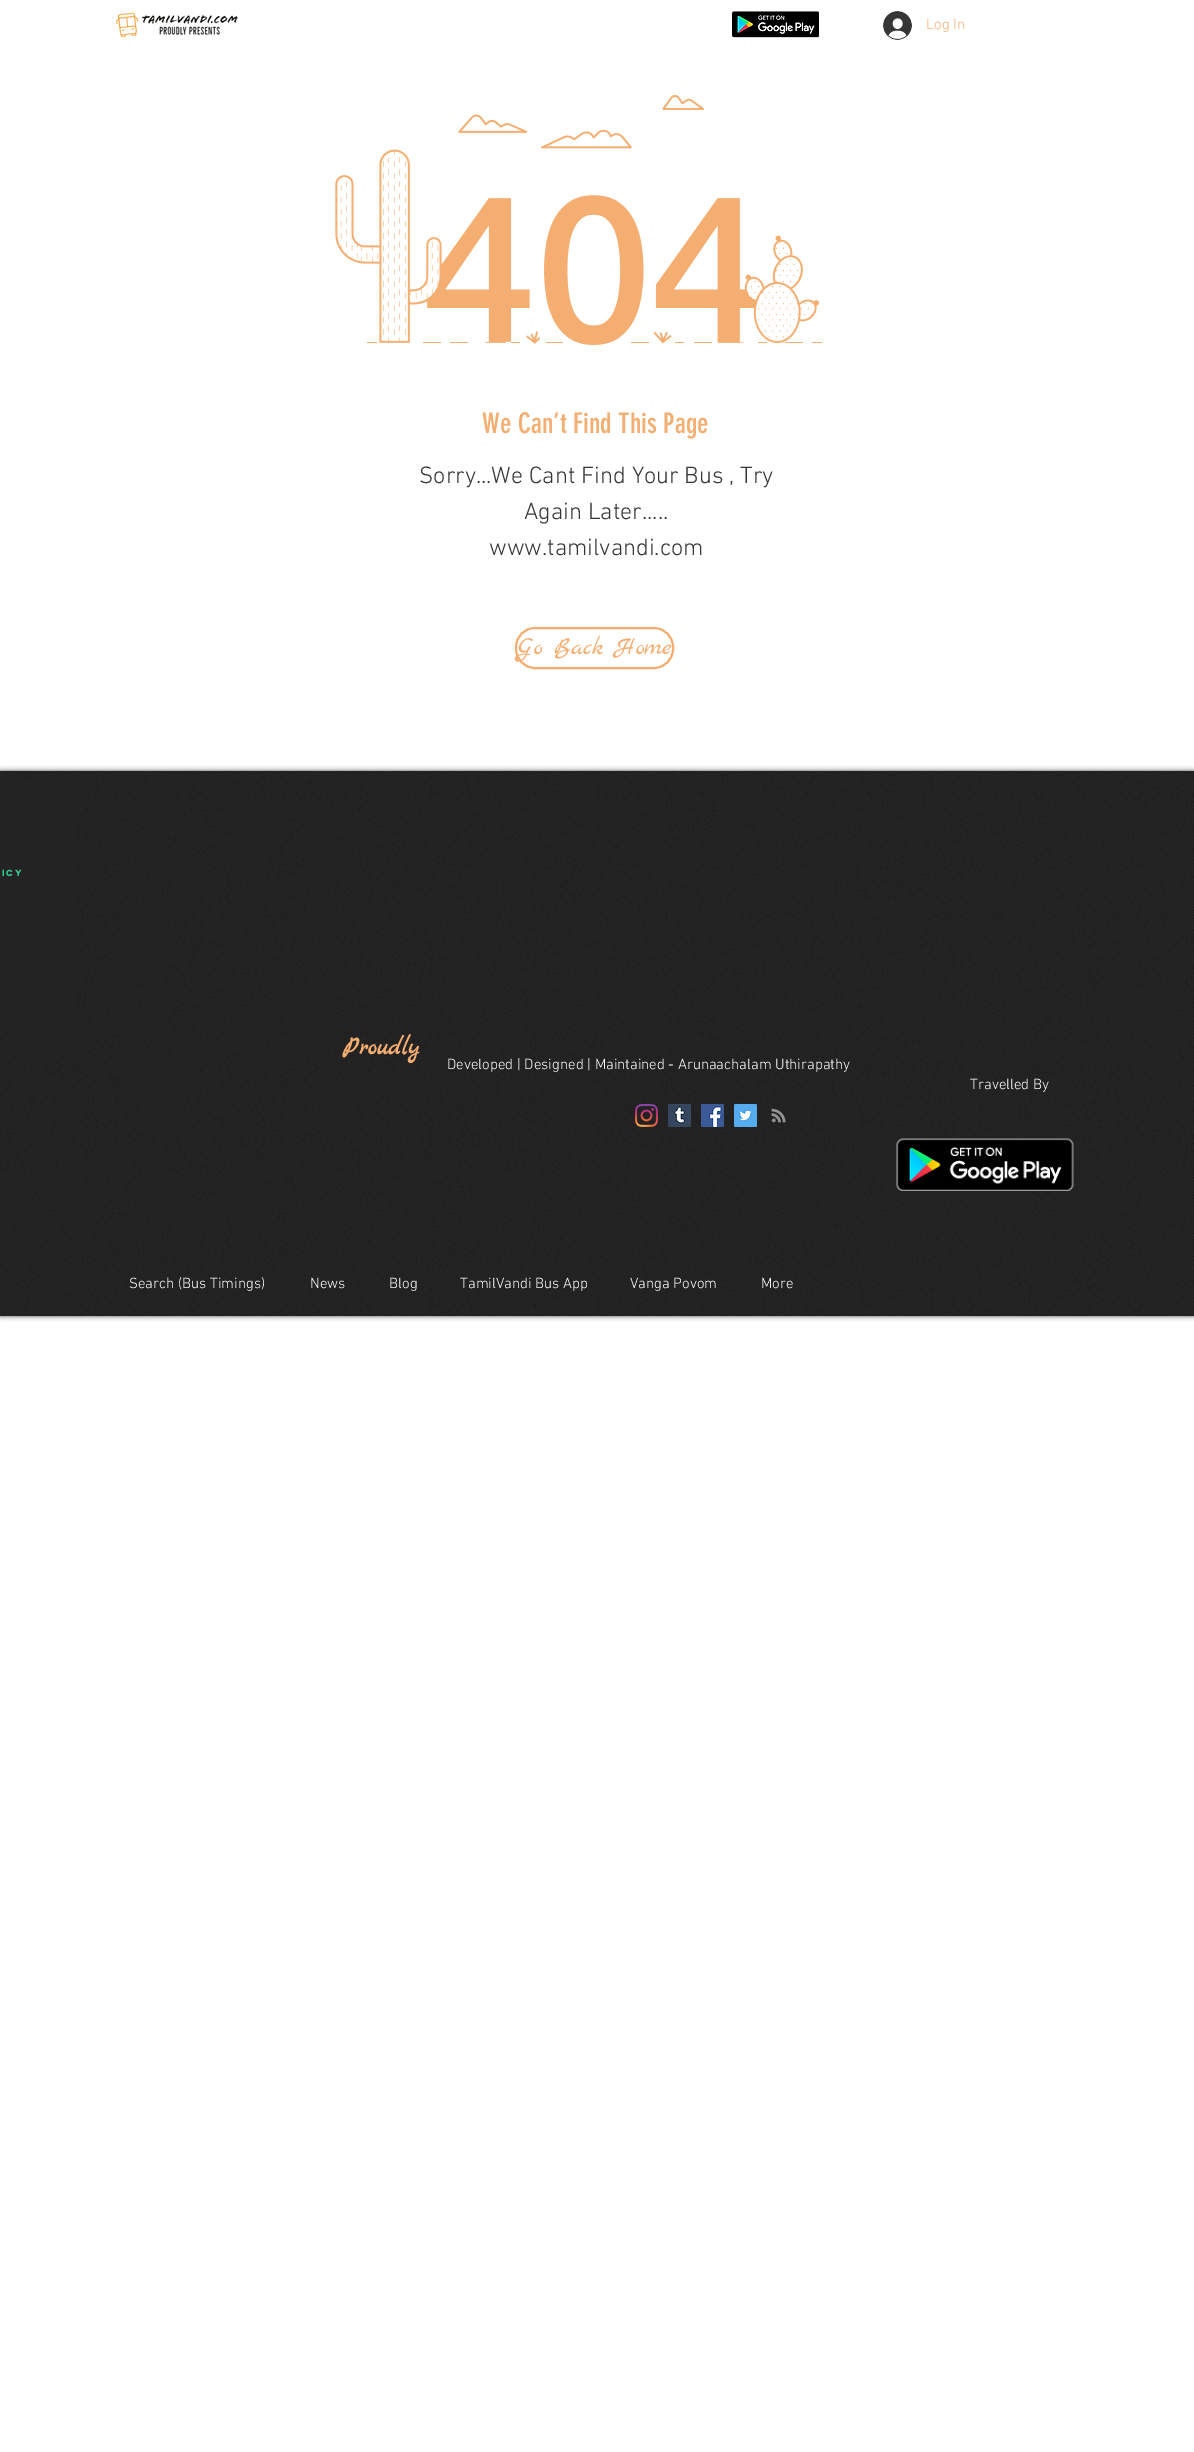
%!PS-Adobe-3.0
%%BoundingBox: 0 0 1194 2452
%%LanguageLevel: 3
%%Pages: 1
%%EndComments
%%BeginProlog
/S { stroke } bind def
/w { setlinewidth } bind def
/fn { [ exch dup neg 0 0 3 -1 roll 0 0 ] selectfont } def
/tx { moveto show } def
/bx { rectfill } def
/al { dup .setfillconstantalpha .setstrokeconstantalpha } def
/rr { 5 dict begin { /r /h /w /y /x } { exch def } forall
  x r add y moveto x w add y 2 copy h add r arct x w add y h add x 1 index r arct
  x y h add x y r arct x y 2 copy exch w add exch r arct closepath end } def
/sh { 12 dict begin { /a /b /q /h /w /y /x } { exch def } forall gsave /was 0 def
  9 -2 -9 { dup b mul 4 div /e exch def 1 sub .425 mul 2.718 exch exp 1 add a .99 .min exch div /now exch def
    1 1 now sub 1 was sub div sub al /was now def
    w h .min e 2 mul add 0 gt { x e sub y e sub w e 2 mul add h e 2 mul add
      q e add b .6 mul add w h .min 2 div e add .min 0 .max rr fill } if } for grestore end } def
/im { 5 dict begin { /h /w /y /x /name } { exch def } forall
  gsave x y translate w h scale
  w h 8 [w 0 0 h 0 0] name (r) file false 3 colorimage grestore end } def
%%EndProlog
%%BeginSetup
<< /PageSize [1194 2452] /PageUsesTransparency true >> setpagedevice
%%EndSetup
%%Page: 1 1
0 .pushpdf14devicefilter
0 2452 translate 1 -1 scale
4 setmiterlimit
1 setgray
0 0 1194 2452 bx
(image0.raw) 116 12 122 26 im
(image1.raw) 732 11 87 27 im
(image2.raw) 883 11 29 29 im
/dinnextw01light-Light 15 fn
0.961 0.682 0.443 setrgbcolor
(Log In) 926 29 tx
(image3.raw) 335 95 487 250 im
/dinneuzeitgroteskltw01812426-Regular 28 fn
(We Can’t Find This Page) 482 433 tx
/dinnextw01light-Light 24 fn
0.212 setgray
(Sorry...We Cant Find Your Bus , Try) 419 483 tx
(Again Later.....) 524 519 tx
(www.tamilvandi.com) 489 555 tx
0.961 0.682 0.443 setrgbcolor
2 w
516 628 157 40 19 rr S
/MarckScript-Regular 25 fn
(Go Back Home) 517 654 tx
0 setgray
0 771 1194 545 0 2.5 0.7 sh
0.129 setgray
0 771 1194 545 bx
(image4.raw) 0 771 1194 545 im
0.141 0.137 0.137 setrgbcolor
0 780 75 252 bx
/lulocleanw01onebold-Bold 8 fn
0.208 0.776 0.545 setrgbcolor
(icy) 2 876 tx
/MarckScript-Bold 25 fn
0.961 0.682 0.443 setrgbcolor
(Proudly) 343 1054 tx
/dinnextw01light-Light 15 fn
1 setgray
(Developed | Designed | Maintained - Arunaachalam Uthirapathy) 447 1069 tx
(Travelled By) 970 1089 tx
(image5.raw) 635 1104 23 23 im
(image6.raw) 668 1104 23 23 im
(image7.raw) 701 1104 23 23 im
(image8.raw) 734 1104 23 23 im
(image9.raw) 771 1108 15 15 im
(image10.raw) 896 1138 178 53 im
(Search \(Bus Timings\)) 129 1288 tx
(News) 310 1288 tx
(Blog) 389 1288 tx
(TamilVandi Bus App) 460 1288 tx
(Vanga Povom) 630 1288 tx
(More) 761 1288 tx
.poppdf14devicefilter showpage
%%EOF
